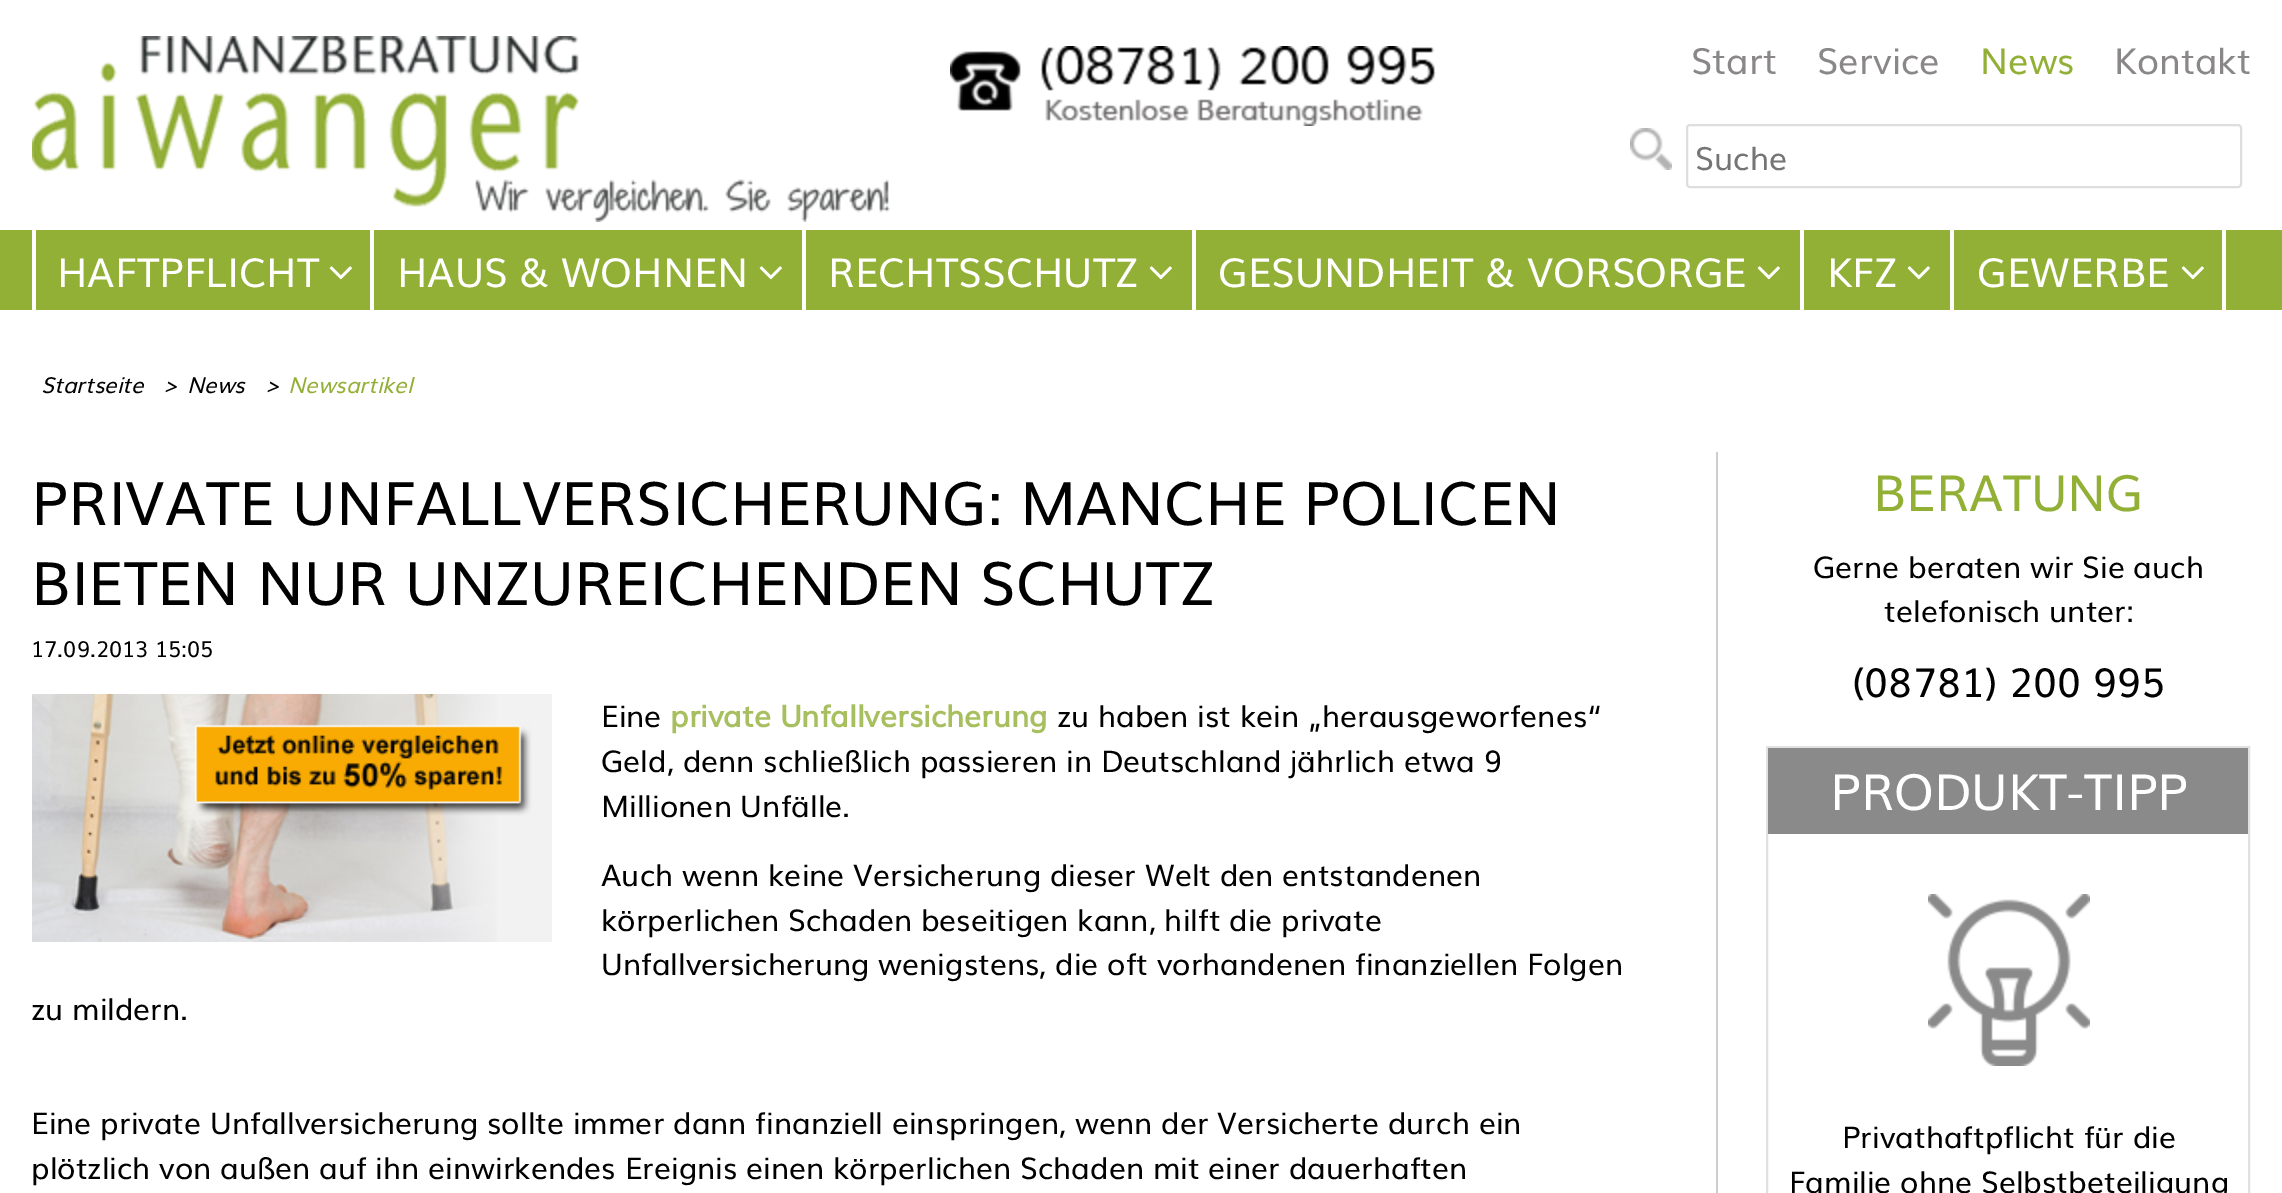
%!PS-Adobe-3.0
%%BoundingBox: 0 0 2282 1193
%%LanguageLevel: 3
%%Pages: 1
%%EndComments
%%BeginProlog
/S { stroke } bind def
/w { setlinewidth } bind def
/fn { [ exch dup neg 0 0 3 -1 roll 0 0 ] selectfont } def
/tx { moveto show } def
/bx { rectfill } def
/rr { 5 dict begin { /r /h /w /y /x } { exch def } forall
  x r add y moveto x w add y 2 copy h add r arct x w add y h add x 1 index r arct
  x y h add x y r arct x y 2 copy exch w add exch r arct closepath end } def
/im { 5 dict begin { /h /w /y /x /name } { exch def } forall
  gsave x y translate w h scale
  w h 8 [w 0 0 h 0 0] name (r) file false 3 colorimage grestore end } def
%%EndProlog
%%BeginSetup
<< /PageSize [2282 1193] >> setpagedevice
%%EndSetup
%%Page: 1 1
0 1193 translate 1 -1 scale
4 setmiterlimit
1 setgray
0 0 2282 1193 bx
(image0.raw) 32 36 858 186 im
(image1.raw) 950 46 486 80 im
/Muli-Regular 36 fn
0.541 0.529 0.533 setrgbcolor
(Start) 1691 74 tx
(Service) 1817 74 tx
0.573 0.686 0.212 setrgbcolor
(News) 1980 74 tx
0.541 0.529 0.533 setrgbcolor
(Kontakt) 2114 74 tx
(image2.raw) 1630 128 42 42 im
0.875 0.867 0.871 setrgbcolor
2 w
1687 125 554 62 3 rr S
/Muli-Regular 32 fn
0.459 setgray
(Suche) 1695 170 tx
0.573 0.686 0.212 setrgbcolor
0 230 2282 80 bx
1 setgray
32 230 4 80 bx
/Muli-Regular 40 fn
(HAFTPFLICHT) 57 287 tx
(image3.raw) 329 266 23 14 im
370 230 4 80 bx
(HAUS & WOHNEN) 397 287 tx
(image3.raw) 759 266 23 14 im
802 230 4 80 bx
(RECHTSSCHUTZ) 828 287 tx
(image3.raw) 1149 266 23 14 im
1192 230 4 80 bx
(GESUNDHEIT & VORSORGE) 1218 287 tx
(image3.raw) 1757 266 23 14 im
1800 230 4 80 bx
(KFZ) 1827 287 tx
(image3.raw) 1907 266 23 14 im
2222 230 4 80 bx
1950 230 4 80 bx
(GEWERBE) 1977 287 tx
(image3.raw) 2181 266 23 14 im
/Muli-Italic 22 fn
0 setgray
(Startseite) 41 393 tx
(>) 163 393 tx
(News) 187 393 tx
(>) 265 393 tx
0.573 0.686 0.212 setrgbcolor
(Newsartikel) 288 393 tx
0.804 0.804 0.8 setrgbcolor
1716 452 2 741 bx
/Muli-Regular 60 fn
0 setgray
(PRIVATE UNFALLVERSICHERUNG: MANCHE POLICEN) 31 525 tx
(BIETEN NUR UNZUREICHENDEN SCHUTZ) 31 605 tx
/Muli-Regular 22 fn
(17.09.2013 15:05) 31 657 tx
(image4.raw) 32 694 520 248 im
/Muli-Regular 30 fn
(Eine) 601 727 tx
/Muli-Bold 30 fn
0.659 0.749 0.376 setrgbcolor
(private Unfallversicherung) 670 727 tx
/Muli-Regular 30 fn
0 setgray
(zu haben ist kein „herausgeworfenes“) 1057 727 tx
(Geld, denn schließlich passieren in Deutschland jährlich etwa 9) 601 772 tx
(Millionen Unfälle.) 601 817 tx
(Auch wenn keine Versicherung dieser Welt den entstandenen) 601 886 tx
(körperlichen Schaden beseitigen kann, hilft die private) 601 931 tx
(Unfallversicherung wenigstens, die oft vorhandenen finanziellen Folgen) 601 975 tx
(zu mildern.) 31 1020 tx
(Eine private Unfallversicherung sollte immer dann finanziell einspringen, wenn der Versicherte durch ein) 31 1134 tx
(plötzlich von außen auf ihn einwirkendes Ereignis einen körperlichen Schaden mit einer dauerhaften) 31 1179 tx
/Muli-Regular 50 fn
0.573 0.686 0.212 setrgbcolor
(BERATUNG) 1873 511 tx
/Muli-Regular 30 fn
0 setgray
(Gerne beraten wir Sie auch) 1813 578 tx
(telefonisch unter:) 1884 622 tx
/Muli-Regular 40 fn
(\(08781\) 200 995) 1852 697 tx
0.882 setgray
1767 747 482 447 rectstroke
0.541 setgray
1768 748 480 86 bx
/Muli-Regular 50 fn
1 setgray
(PRODUKT-TIPP) 1830 810 tx
(image5.raw) 1928 894 162 172 im
/Muli-Regular 30 fn
0 setgray
(Privathaftpflicht für die) 1842 1148 tx
(Familie ohne Selbstbeteiligung) 1789 1193 tx
showpage
%%EOF
